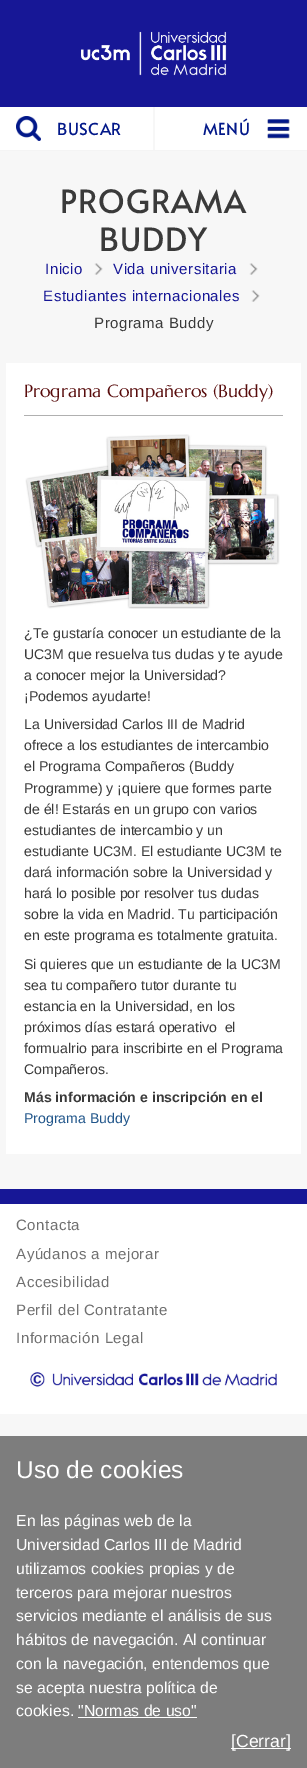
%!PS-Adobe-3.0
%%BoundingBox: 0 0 307 1768
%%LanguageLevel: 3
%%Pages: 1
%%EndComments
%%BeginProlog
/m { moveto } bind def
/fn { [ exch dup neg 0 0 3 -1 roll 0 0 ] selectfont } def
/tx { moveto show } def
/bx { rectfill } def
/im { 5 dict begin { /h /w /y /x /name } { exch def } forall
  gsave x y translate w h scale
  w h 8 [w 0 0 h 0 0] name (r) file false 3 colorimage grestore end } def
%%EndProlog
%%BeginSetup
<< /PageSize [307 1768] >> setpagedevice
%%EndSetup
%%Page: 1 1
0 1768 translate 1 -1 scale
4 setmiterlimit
0.969 setgray
0 0 307 1768 bx
0.09 0.09 0.588 setrgbcolor
0 0 307 107 bx
(image0.raw) 81 31 146 45 im
1 setgray
0 107 307 43 bx
0.957 setgray
0 150 307 1 bx
0.969 setgray
153 107 2 43 bx
(image1.raw) 16 116 25 25 im
/Alata-Regular 16.5 fn
0.008 0.094 0.537 setrgbcolor
57 135 m 0.5 0 (BUSCAR) ashow
203 135 m 0.5 0 (MENÚ) ashow
(image2.raw) 267 119 23 20 im
/Alata-Regular 32 fn
0.227 setgray
60 213 m 1 0 (PROGRAMA) ashow
99 251 m 1 0 (BUDDY) ashow
/LiberationSans-Regular 15 fn
0.09 0.09 0.588 setrgbcolor
45 274 m 0.5 0 (Inicio) ashow
(image3.raw) 94 263 9 12 im
113 274 m 0.5 0 (Vida universitaria) ashow
(image4.raw) 249 263 9 12 im
43 301 m 0.5 0 (Estudiantes internacionales) ashow
(image4.raw) 251 290 9 12 im
0.227 setgray
94 328 m 0.5 0 (Programa Buddy) ashow
1 setgray
6 363 295 791 bx
0.69 setgray
24 415 259 1 bx
/Marcellus-Regular 17.6 fn
0.345 0.047 0.047 setrgbcolor
(Programa Compañeros \(Buddy\)) 24 397 tx
(image5.raw) 25 434 255 175 im
/LiberationSans-Regular 14.1 fn
0.227 setgray
(¿Te gustaría conocer un estudiante de la) 24 638 tx
(UC3M que resuelva tus dudas y te ayude) 24 659 tx
(a conocer mejor la Universidad?) 24 680 tx
(¡Podemos ayudarte!) 24 701 tx
(La Universidad Carlos III de Madrid) 24 729 tx
(ofrece a los estudiantes de intercambio) 24 750 tx
(el Programa Compañeros \(Buddy) 24 771 tx
(Programme\) y ¡quiere que formes parte) 24 793 tx
(de él! Estarás en un grupo con varios) 24 814 tx
(estudiantes de intercambio y un) 24 835 tx
(estudiante UC3M. El estudiante UC3M te) 24 856 tx
(dará información sobre la Universidad y) 24 877 tx
(hará lo posible por resolver tus dudas) 24 898 tx
(sobre la vida en Madrid. Tu participación) 24 919 tx
(en este programa es totalmente gratuita.) 24 940 tx
(Si quieres que un estudiante de la UC3M) 24 969 tx
(sea tu compañero tutor durante tu) 24 990 tx
(estancia en la Universidad, en los) 24 1011 tx
(próximos días estará operativo  el) 24 1032 tx
(formualrio para inscribirte en el Programa) 24 1053 tx
(Compañeros.) 24 1074 tx
/LiberationSans-Bold 14.1 fn
(Más información e inscripción en el) 24 1102 tx
/LiberationSans-Regular 14.1 fn
0.125 0.333 0.541 setrgbcolor
(Programa Buddy) 24 1123 tx
1 setgray
0 1204 307 210 bx
0.09 0.09 0.588 setrgbcolor
0 1189 307 15 bx
/LiberationSans-Regular 15 fn
0.439 setgray
16 1230 m 0.5 0 (Contacta) ashow
16 1259 m 0.5 0 (Ayúdanos a mejorar) ashow
16 1287 m 0.5 0 (Accesibilidad) ashow
16 1315 m 0.5 0 (Perfil del Contratante) ashow
16 1343 m 0.5 0 (Información Legal) ashow
(image6.raw) 30 1372 247 16 im
0.49 setgray
0 1436 307 332 bx
/LiberationSans-Regular 24.5 fn
1 setgray
(Uso de cookies) 16 1478 tx
/LiberationSans-Regular 15.8 fn
(En las páginas web de la) 16 1526 tx
(Universidad Carlos III de Madrid) 16 1550 tx
(utilizamos cookies propias y de) 16 1574 tx
(terceros para mejorar nuestros) 16 1598 tx
(servicios mediante el análisis de sus) 16 1621 tx
(hábitos de navegación. Al continuar) 16 1645 tx
(con la navegación, entendemos que) 16 1669 tx
(se acepta nuestra política de) 16 1693 tx
(cookies. "Normas de uso") 16 1716 tx
78 1717 119 1 bx
231 1748 60 1 bx
/LiberationSans-Regular 17.6 fn
([Cerrar]) 231 1747 tx
showpage
%%EOF
